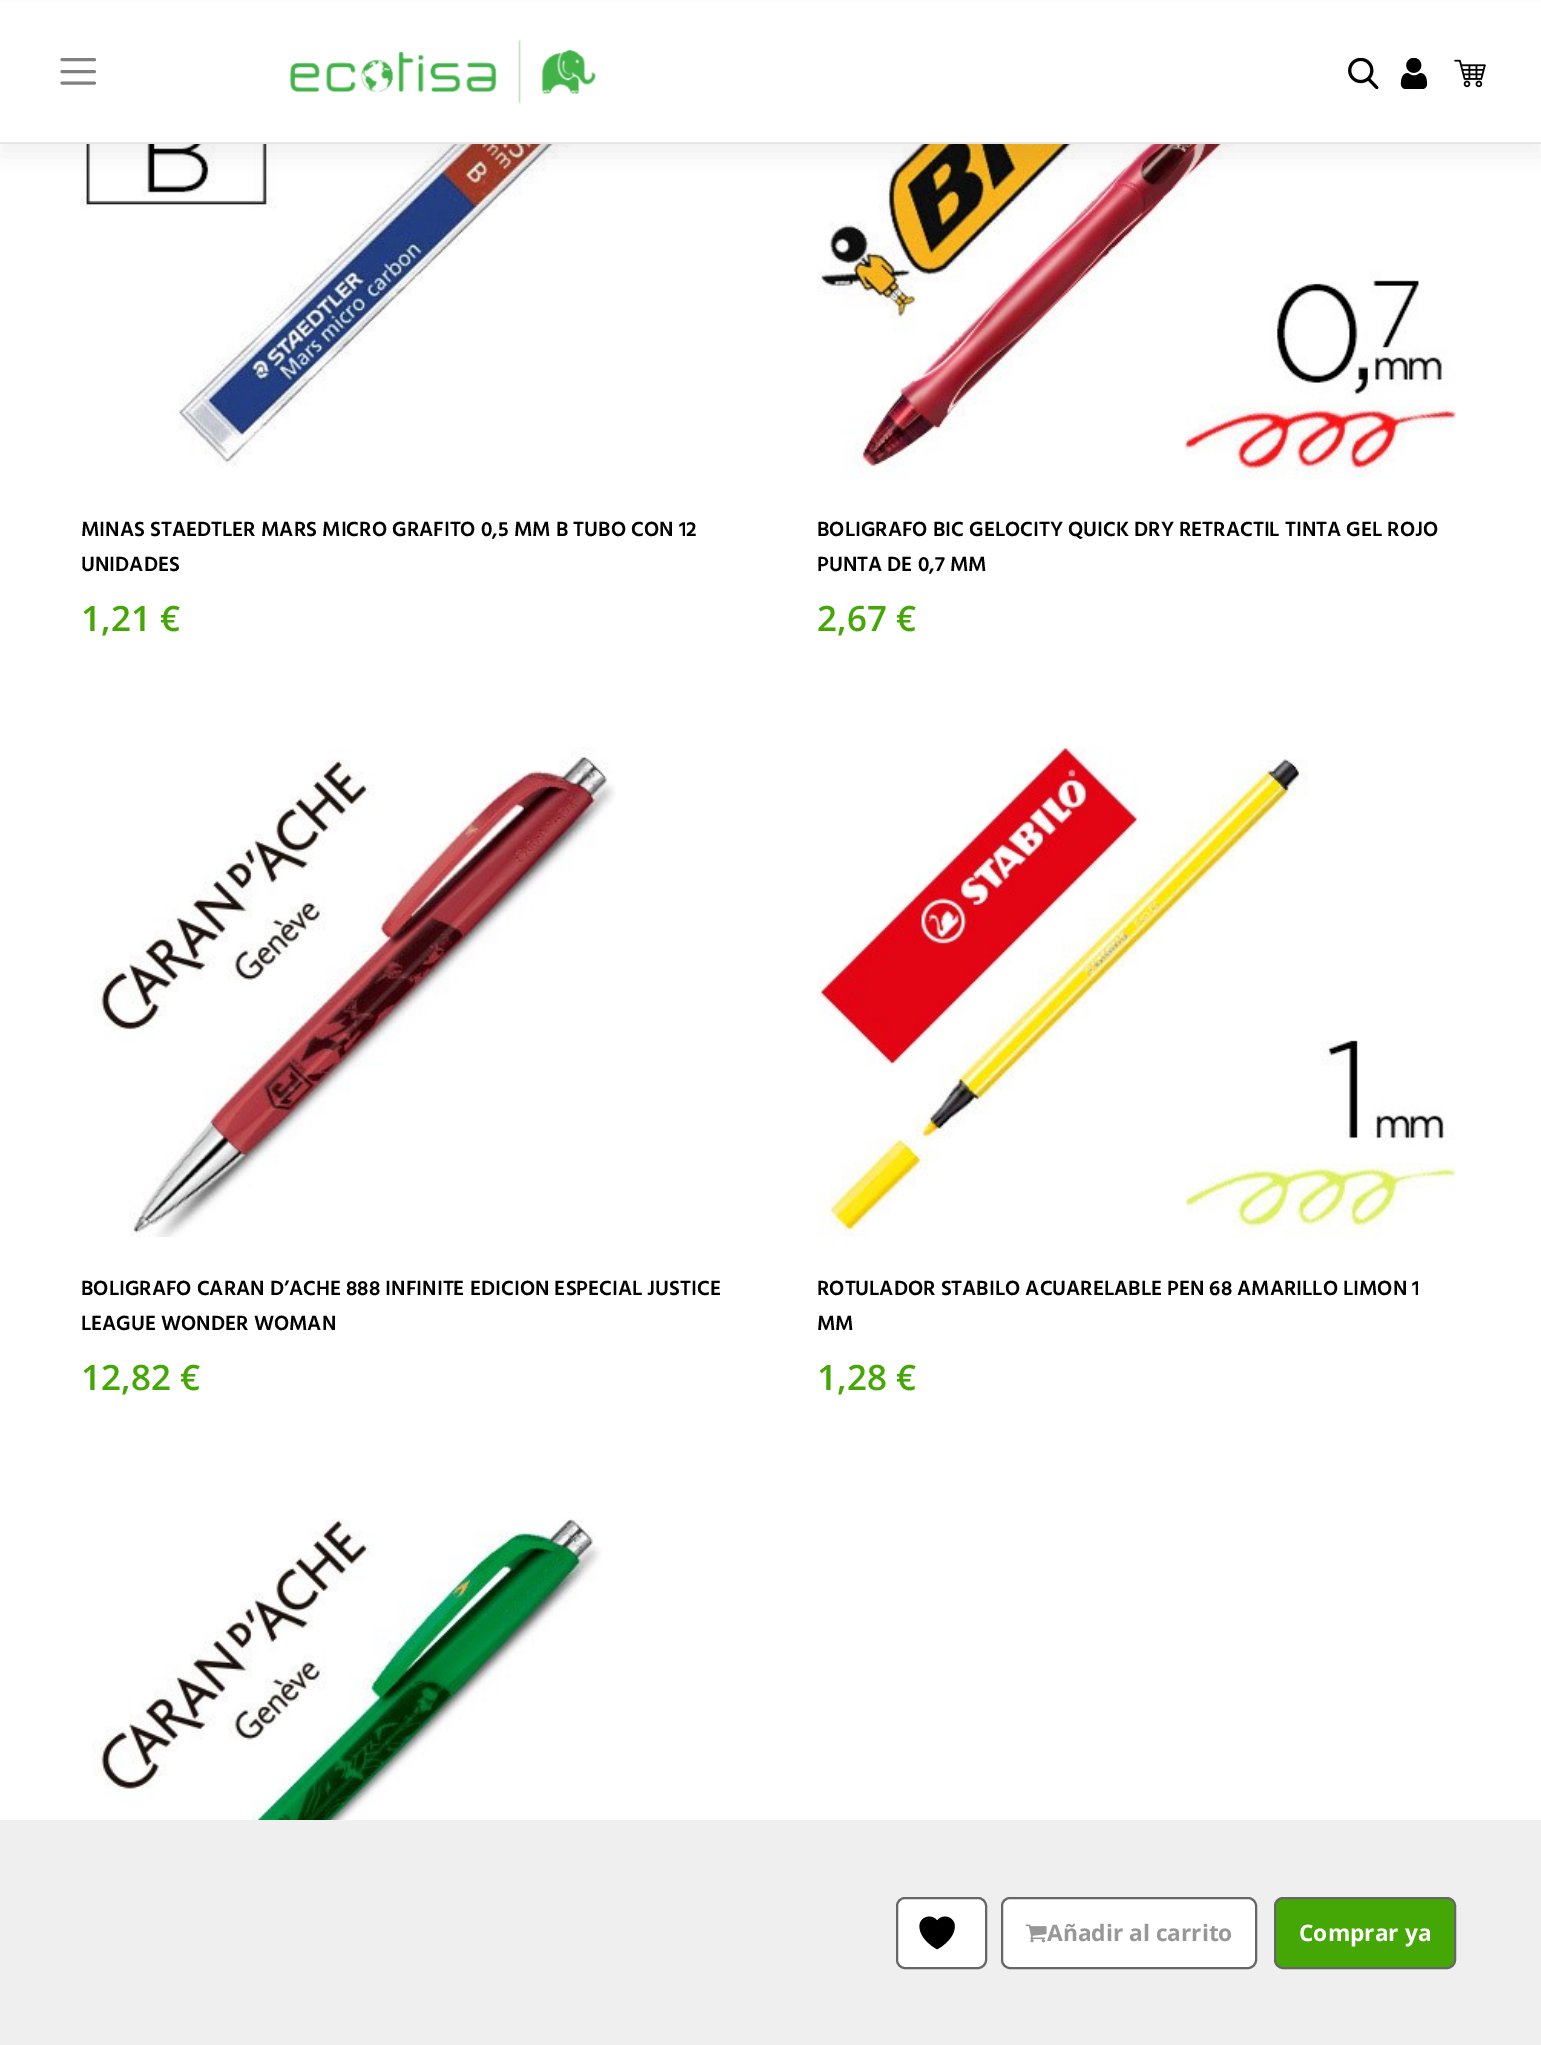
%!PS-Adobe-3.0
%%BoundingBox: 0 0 1541 2045
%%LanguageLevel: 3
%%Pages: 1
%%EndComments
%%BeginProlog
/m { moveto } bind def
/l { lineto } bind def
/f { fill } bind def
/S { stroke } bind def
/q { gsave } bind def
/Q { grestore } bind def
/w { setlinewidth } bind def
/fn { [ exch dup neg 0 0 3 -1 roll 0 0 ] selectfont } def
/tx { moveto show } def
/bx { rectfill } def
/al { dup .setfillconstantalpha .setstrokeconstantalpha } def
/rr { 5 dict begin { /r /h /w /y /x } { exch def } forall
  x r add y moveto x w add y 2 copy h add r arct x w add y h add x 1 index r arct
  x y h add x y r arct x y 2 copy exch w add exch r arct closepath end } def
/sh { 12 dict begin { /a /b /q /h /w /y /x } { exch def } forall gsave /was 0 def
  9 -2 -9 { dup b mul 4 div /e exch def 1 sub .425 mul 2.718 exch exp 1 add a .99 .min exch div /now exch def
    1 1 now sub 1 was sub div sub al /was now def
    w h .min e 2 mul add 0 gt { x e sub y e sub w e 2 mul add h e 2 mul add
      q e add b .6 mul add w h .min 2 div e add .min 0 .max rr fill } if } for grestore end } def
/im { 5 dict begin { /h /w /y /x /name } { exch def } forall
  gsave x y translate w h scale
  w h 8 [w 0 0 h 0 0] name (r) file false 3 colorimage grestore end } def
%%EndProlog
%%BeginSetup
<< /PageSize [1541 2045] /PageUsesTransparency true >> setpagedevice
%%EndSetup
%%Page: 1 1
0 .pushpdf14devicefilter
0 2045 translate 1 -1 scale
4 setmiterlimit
1 setgray
0 0 1541 2045 bx
(image4.raw) 80 144 580 323 im
(image5.raw) 817 144 640 335 im
0 setgray
0 12 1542 144 0 12 0.05 sh
1 setgray
0 2 1541 140 bx
0.902 setgray
0 142 1541 2 bx
0.502 setgray
3 w
1 setlinecap
62 59.5 m 94.5 59.5 l 62 71.5 m 94.5 71.5 l 62 83 m 94.5 83 l S
(image0.raw) 289 40 307 64 im
(image1.raw) 1348 58 31 31 im
(image2.raw) 1400 58 28 31 im
(image3.raw) 1454 59 32 29 im
/Hind-SemiBold 21 fn
0 setgray
(MINAS STAEDTLER MARS MICRO GRAFITO 0,5 MM B TUBO CON 12) 81 536 tx
(UNIDADES) 81 571 tx
/OpenSans-SemiBold 35 fn
0.267 0.655 0.02 setrgbcolor
(1,21 €) 81 631 tx
/Hind-SemiBold 21 fn
0 setgray
(BOLIGRAFO BIC GELOCITY QUICK DRY RETRACTIL TINTA GEL ROJO) 817 536 tx
(PUNTA DE 0,7 MM) 817 571 tx
/OpenSans-SemiBold 35 fn
0.267 0.655 0.02 setrgbcolor
(2,67 €) 817 631 tx
(image6.raw) 93 747 523 490 im
/Hind-SemiBold 21 fn
0 setgray
(BOLIGRAFO CARAN D’ACHE 888 INFINITE EDICION ESPECIAL JUSTICE) 81 1295 tx
(LEAGUE WONDER WOMAN) 81 1330 tx
/OpenSans-SemiBold 35 fn
0.267 0.655 0.02 setrgbcolor
(12,82 €) 81 1390 tx
(image7.raw) 817 747 640 490 im
/Hind-SemiBold 21 fn
0 setgray
(ROTULADOR STABILO ACUARELABLE PEN 68 AMARILLO LIMON 1) 817 1295 tx
(MM) 817 1330 tx
/OpenSans-SemiBold 35 fn
0.267 0.655 0.02 setrgbcolor
(1,28 €) 817 1390 tx
(image8.raw) 81 1518 521 302 im
0.937 setgray
0 1820 1541 225 bx
1 setgray
897 1898 89 70 8 rr q f Q
0.4 setgray
2 w
0 setlinecap
S
(image9.raw) 919 1916 36 34 im
1 setgray
1002 1898 254 70 8 rr q f Q
0.4 setgray
S
(image10.raw) 1025 1924 22 19 im
/OpenSans-Bold 22.75 fn
0.592 setgray
(Añadir al carrito) 1047 1941 tx
0.267 0.655 0.02 setrgbcolor
1275 1898 180 70 8 rr q f Q
0.4 setgray
S
1 setgray
(Comprar ya) 1299 1941 tx
.poppdf14devicefilter showpage
%%EOF
